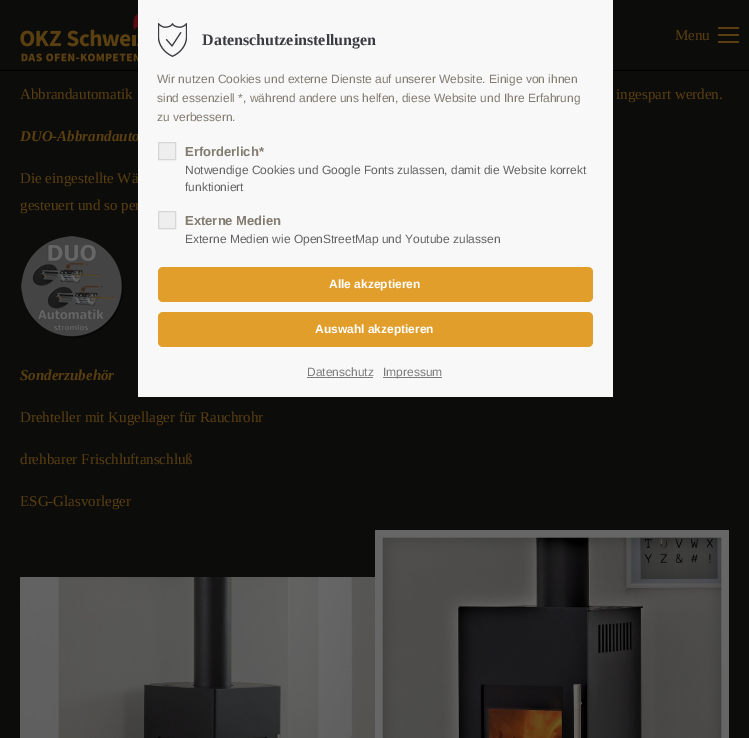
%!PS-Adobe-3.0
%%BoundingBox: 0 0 749 738
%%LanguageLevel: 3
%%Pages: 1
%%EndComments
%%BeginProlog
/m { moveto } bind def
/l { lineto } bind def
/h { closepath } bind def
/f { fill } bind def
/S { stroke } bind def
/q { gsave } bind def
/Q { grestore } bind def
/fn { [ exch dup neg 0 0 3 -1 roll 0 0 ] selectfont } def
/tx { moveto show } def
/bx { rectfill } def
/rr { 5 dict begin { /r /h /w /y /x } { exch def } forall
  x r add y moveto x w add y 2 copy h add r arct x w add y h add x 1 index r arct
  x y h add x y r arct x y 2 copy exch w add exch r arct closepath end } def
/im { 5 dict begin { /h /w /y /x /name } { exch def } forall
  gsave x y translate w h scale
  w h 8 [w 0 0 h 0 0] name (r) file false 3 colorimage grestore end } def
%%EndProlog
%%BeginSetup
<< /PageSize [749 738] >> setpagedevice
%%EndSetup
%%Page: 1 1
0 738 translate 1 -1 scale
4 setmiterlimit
0.047 0.047 0.043 setrgbcolor
0 0 749 738 bx
0 setgray
0 70 749 1 bx
/LiberationSerif-BoldItalic 15 fn
0.353 0.247 0.067 setrgbcolor
(DUO-Abbrandauto) 20 141 tx
/LiberationSerif-Regular 15 fn
(Die eingestellte Wä) 20 183 tx
(gesteuert und so per) 20 210 tx
0.973 setgray
138 0 475 397 bx
(image0.raw) 158 23 29 34 im
/LiberationSerif-Bold 16 fn
0.231 0.235 0.259 setrgbcolor
(Datenschutzeinstellungen) 202 45 tx
/LiberationSans-Regular 12 fn
0.51 0.482 0.439 setrgbcolor
(Wir nutzen Cookies und externe Dienste auf unserer Website. Einige von ihnen) 157 83 tx
(sind essenziell *, während andere uns helfen, diese Website und Ihre Erfahrung) 157 102 tx
(zu verbessern.) 157 121 tx
0.933 setgray
158.5 142.5 m 175.5 142.5 l 175.5 159.5 l 158.5 159.5 l h q f Q
0.839 setgray
S
/LiberationSans-Bold 13 fn
0.51 0.482 0.439 setrgbcolor
(Erforderlich*) 185 156 tx
/LiberationSans-Regular 12 fn
0.388 setgray
(Notwendige Cookies und Google Fonts zulassen, damit die Website korrekt) 185 174 tx
(funktioniert) 185 191 tx
0.933 setgray
158.5 211.5 m 175.5 211.5 l 175.5 228.5 l 158.5 228.5 l h q f Q
0.839 setgray
S
/LiberationSans-Bold 13 fn
0.51 0.482 0.439 setrgbcolor
(Externe Medien) 185 225 tx
/LiberationSans-Regular 12 fn
0.388 setgray
(Externe Medien wie OpenStreetMap und Youtube zulassen) 185 243 tx
0.882 0.62 0.165 setrgbcolor
158 267 435 35 5 rr f
/LiberationSans-Bold 12 fn
1 setgray
(Alle akzeptieren) 329 288 tx
0.882 0.62 0.165 setrgbcolor
158 312 435 35 5 rr f
1 setgray
(Auswahl akzeptieren) 315 333 tx
/LiberationSans-Regular 12 fn
0.486 setgray
(Datenschutz) 307 376 tx
307 377 66 1 bx
383 377 59 1 bx
(Impressum) 383 376 tx
(image1.raw) 20 14 118 48 im
/LiberationSerif-Regular 15 fn
0.353 0.247 0.067 setrgbcolor
(Menu) 675 40 tx
718 34 21 2 1 rr f
718 27 21 2 1 rr f
718 41 21 2 1 rr f
(Abbrandautomatik) 20 99 tx
(ingespart werden.) 616 99 tx
(image2.raw) 21 236 102 102 im
/LiberationSerif-BoldItalic 15 fn
(Sonderzubehör) 20 380 tx
/LiberationSerif-Regular 15 fn
(Drehteller mit Kugellager für Rauchrohr) 20 422 tx
(drehbarer Frischluftanschluß) 20 464 tx
(ESG-Glasvorleger) 20 506 tx
(image3.raw) 20 577 355 161 im
(image4.raw) 375 530 354 208 im
showpage
%%EOF
